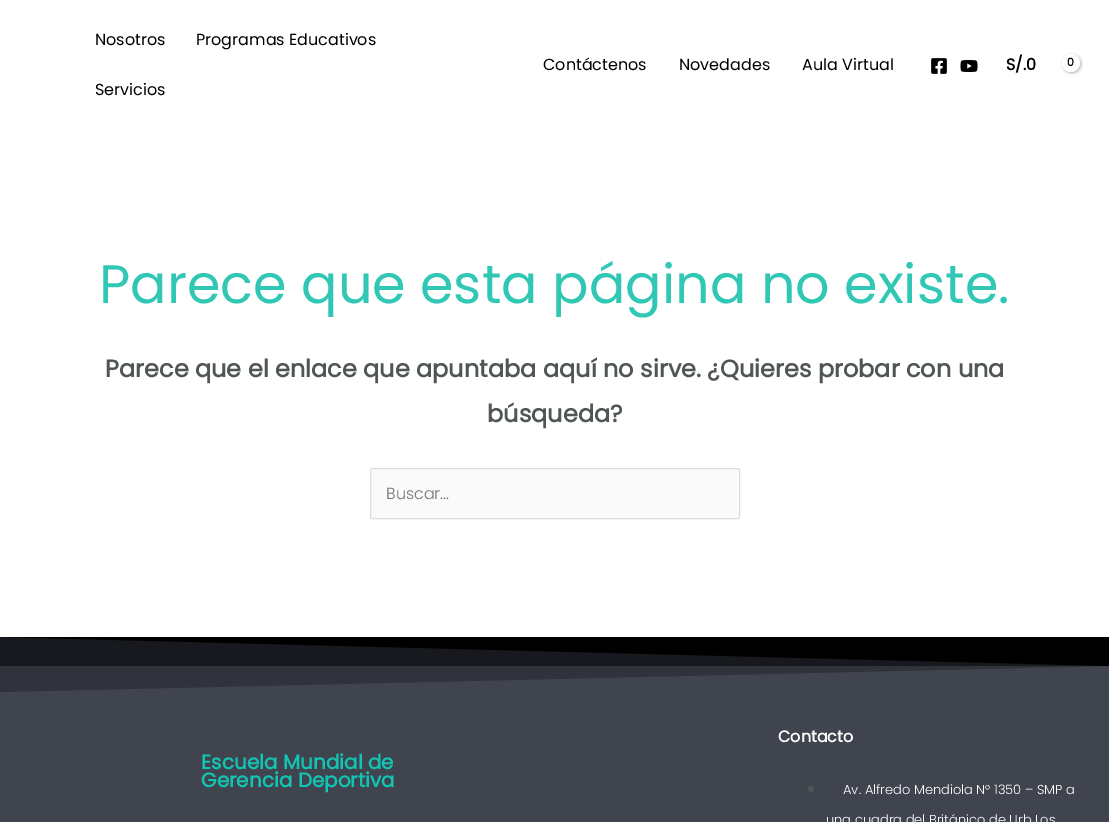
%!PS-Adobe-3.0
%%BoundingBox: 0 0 1109 822
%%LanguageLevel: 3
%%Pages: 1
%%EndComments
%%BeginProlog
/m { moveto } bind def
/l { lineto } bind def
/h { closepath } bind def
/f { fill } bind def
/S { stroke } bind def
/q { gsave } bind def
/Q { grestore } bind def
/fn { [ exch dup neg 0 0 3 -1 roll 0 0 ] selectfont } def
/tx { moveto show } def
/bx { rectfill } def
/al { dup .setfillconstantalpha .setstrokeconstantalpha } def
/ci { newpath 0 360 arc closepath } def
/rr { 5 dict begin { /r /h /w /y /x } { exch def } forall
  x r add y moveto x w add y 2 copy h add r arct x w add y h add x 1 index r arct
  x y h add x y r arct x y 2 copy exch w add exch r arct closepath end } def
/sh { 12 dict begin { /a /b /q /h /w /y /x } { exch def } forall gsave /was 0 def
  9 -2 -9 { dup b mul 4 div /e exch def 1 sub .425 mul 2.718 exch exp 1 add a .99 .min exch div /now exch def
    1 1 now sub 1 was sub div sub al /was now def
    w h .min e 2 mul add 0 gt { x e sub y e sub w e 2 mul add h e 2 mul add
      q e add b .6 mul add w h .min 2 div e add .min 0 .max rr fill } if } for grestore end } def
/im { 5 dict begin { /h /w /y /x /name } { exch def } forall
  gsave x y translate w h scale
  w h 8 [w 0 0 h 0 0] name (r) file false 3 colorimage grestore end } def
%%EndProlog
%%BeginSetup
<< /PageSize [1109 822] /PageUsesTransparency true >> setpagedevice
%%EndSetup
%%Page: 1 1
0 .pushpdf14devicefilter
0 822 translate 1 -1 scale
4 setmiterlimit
1 setgray
0 0 1109 822 bx
/Poppins-Regular 16 fn
0 setgray
(Nosotros) 95 45 tx
(Programas Educativos) 196 45 tx
(Servicios) 95 95 tx
(Contáctenos) 543 70 tx
(Novedades) 679 70 tx
(Aula Virtual) 802 70 tx
(image0.raw) 931 58 16 16 im
(image1.raw) 960 60 18 12 im
/Poppins-Bold 16 fn
(S/.0) 1006 70 tx
1063 55 18 18 9 1.5 0.3 sh
1 setgray
1071 63 9 ci f
/Poppins-Bold 11 fn
0 setgray
(0) 1067 66 tx
/Poppins-Regular 54 fn
0.188 0.78 0.71 setrgbcolor
(Parece que esta página no existe.) 99 303 tx
/Poppins-Bold 24 fn
0.31 0.337 0.333 setrgbcolor
(Parece que el enlace que apuntaba aquí no sirve. ¿Quieres probar con una) 105 377 tx
(búsqueda?) 487 422 tx
0.98 setgray
370.5 468.5 369 50 1.5 rr q f Q
0.867 setgray
S
/Poppins-Light 16 fn
0.459 setgray
(Buscar...) 386 499 tx
0.251 0.267 0.31 setrgbcolor
0 666 1109 156 bx
0.125 0.133 0.157 setrgbcolor
0 637 1108 29 bx
0 setgray
0 637 m 1109 637 l 1109 666 l h f
0.25 al
1109 637 m 0 637 l 0 692 l 1109 666 l h f
/Poppins-Bold 20 fn
1 al
0.067 0.773 0.698 setrgbcolor
(Escuela Mundial de) 201 769 tx
(Gerencia Deportiva) 201 787 tx
/Poppins-Bold 16 fn
1 setgray
(Contacto) 778 742 tx
0.31 0.337 0.333 setrgbcolor
811 789 3 ci f
/Poppins-Light 13 fn
1 setgray
(Av. Alfredo Mendiola N° 1350 – SMP a) 843 794 tx
(una cuadra del Británico de Urb Los) 826 824 tx
.poppdf14devicefilter showpage
%%EOF
